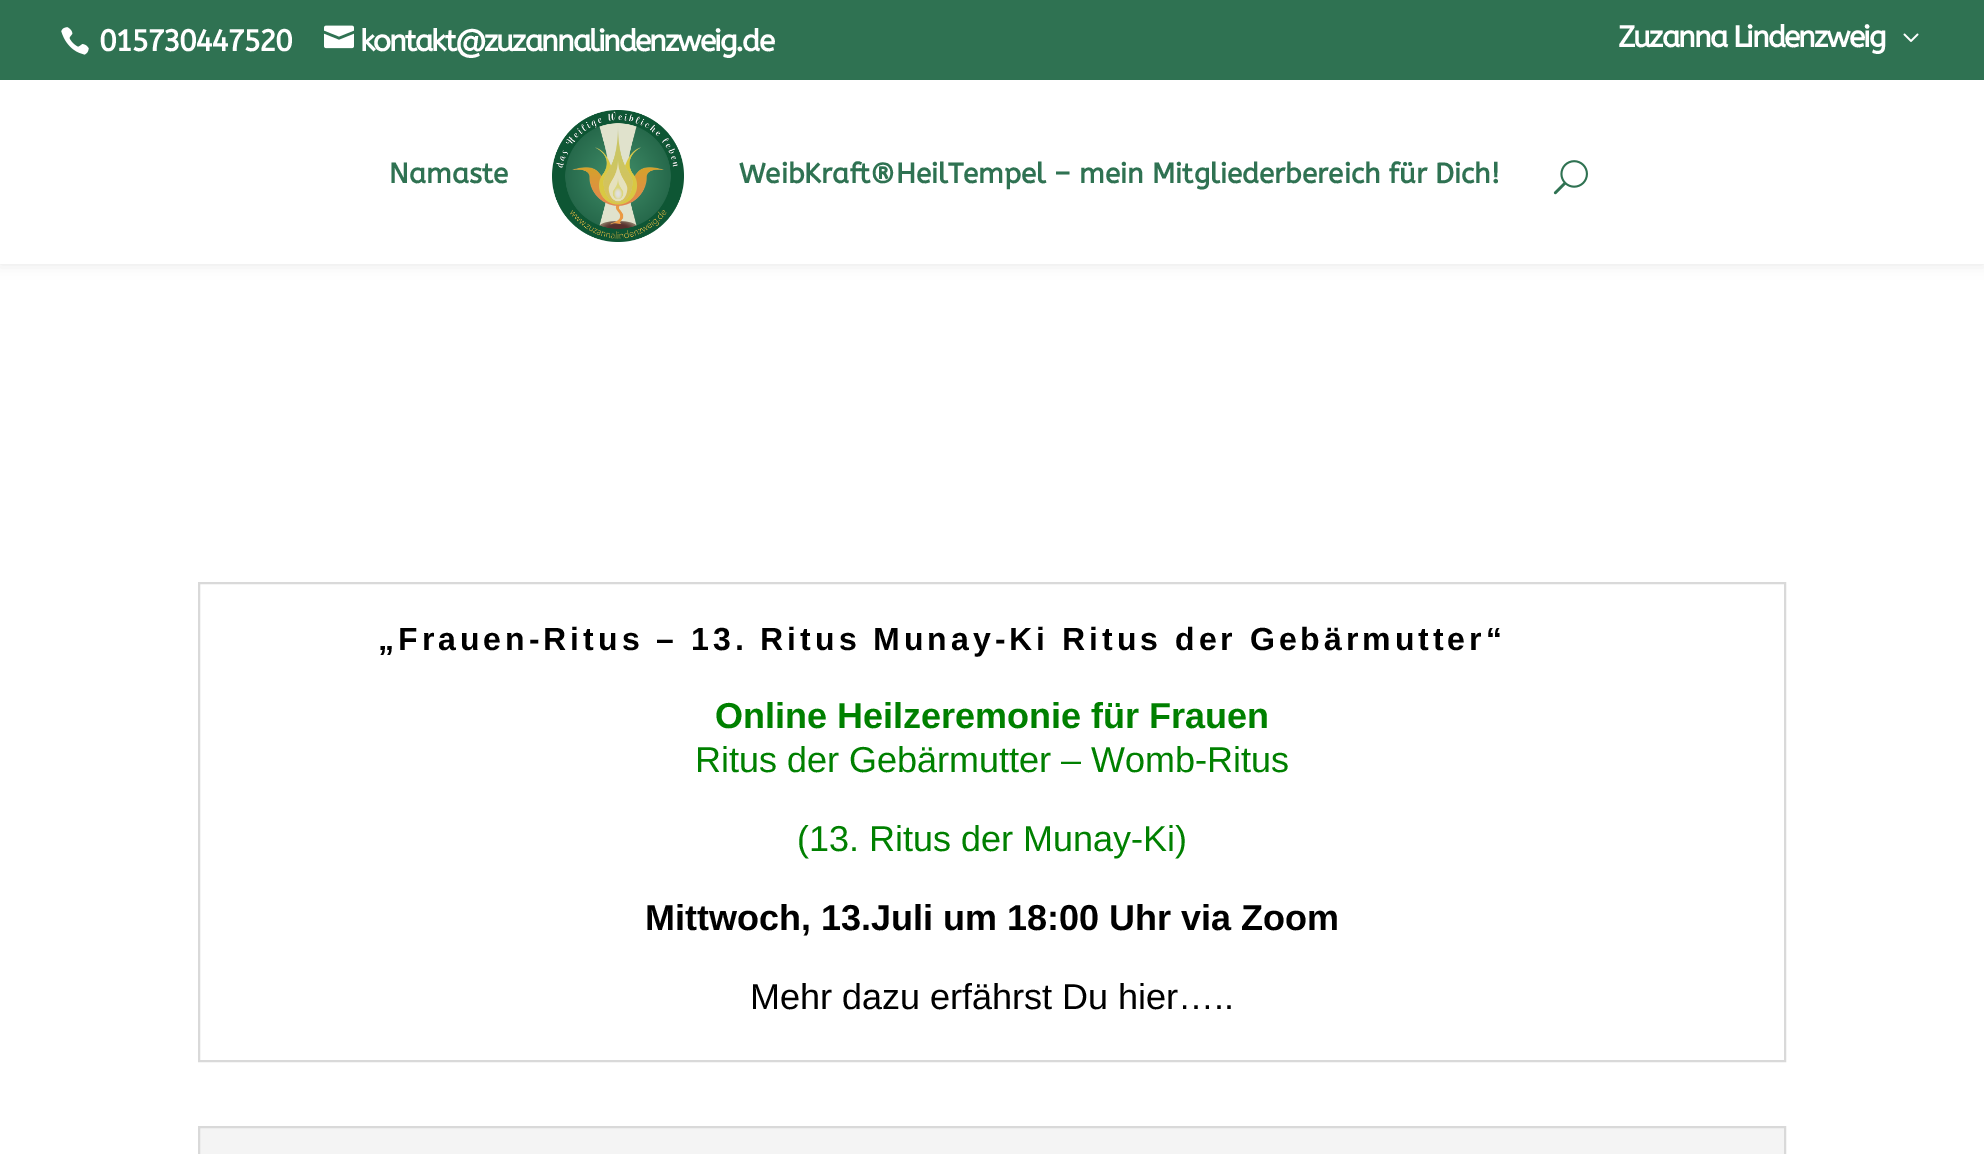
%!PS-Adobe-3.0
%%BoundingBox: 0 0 1984 1154
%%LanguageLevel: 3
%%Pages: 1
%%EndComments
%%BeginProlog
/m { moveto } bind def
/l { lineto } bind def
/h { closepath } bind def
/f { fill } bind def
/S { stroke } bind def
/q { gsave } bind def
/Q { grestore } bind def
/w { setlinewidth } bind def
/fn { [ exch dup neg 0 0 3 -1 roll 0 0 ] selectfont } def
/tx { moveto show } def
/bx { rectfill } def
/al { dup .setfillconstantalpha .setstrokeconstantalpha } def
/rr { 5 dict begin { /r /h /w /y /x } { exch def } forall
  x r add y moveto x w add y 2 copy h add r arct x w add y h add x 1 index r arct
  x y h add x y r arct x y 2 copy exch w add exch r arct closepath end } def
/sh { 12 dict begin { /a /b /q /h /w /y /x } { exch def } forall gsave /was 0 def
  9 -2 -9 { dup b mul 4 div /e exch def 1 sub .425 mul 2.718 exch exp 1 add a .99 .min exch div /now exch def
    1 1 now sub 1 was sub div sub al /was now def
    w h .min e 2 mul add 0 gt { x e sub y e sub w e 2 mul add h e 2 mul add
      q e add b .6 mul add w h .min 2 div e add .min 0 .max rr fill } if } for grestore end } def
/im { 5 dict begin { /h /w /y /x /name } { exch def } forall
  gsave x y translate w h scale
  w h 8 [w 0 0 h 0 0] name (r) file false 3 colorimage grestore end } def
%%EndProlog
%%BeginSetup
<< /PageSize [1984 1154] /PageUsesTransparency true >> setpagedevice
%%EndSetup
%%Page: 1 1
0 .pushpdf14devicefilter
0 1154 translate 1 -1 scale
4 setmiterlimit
1 setgray
0 0 1984 1154 bx
0 setgray
0 80 1984 184 0 7 0.1 sh
0.184 0.447 0.322 setrgbcolor
0 0 1984 80 bx
(image0.raw) 61 27 28 28 im
/ABeeZee-Bold 30 fn
1 setgray
99 51 m -2 0 (015730447520) ashow
(image1.raw) 324 25 30 24 im
360 51 m -2 0 (kontakt@zuzannalindenzweig.de) ashow
1618 47 m -2 0 (Zuzanna Lindenzweig) ashow
(image2.raw) 1903 33 16 9 im
0 80 1984 184 bx
/ABeeZee-Bold 28 fn
0.184 0.447 0.322 setrgbcolor
(Namaste) 389 183 tx
(image3.raw) 552 110 132 132 im
(WeibKraft®HeilTempel – mein Mitgliederbereich für Dich!) 739 183 tx
(image4.raw) 1553 160 35 35 im
0.851 setgray
2 w
199 583 1586 478 rectstroke
/LiberationSans-Bold 32 fn
0 setgray
378 650 m 4 0 („Frauen-Ritus – 13. Ritus Munay-Ki Ritus der Gebärmutter“) ashow
/LiberationSans-Bold 36 fn
0 0.502 0 setrgbcolor
(Online Heilzeremonie für Frauen) 715 728 tx
/LiberationSans-Regular 36 fn
(Ritus der Gebärmutter – Womb-Ritus) 695 772 tx
(\(13. Ritus der Munay-Ki\)) 797 851 tx
/LiberationSans-Bold 36 fn
0 setgray
(Mittwoch, 13.Juli um 18:00 Uhr via Zoom) 645 930 tx
/LiberationSans-Regular 36 fn
(Mehr dazu erfährst Du hier…..) 750 1009 tx
0.957 setgray
199 1127 m 1785 1127 l 1785 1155 l 199 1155 l h q f Q
0.851 setgray
S
.poppdf14devicefilter showpage
%%EOF
